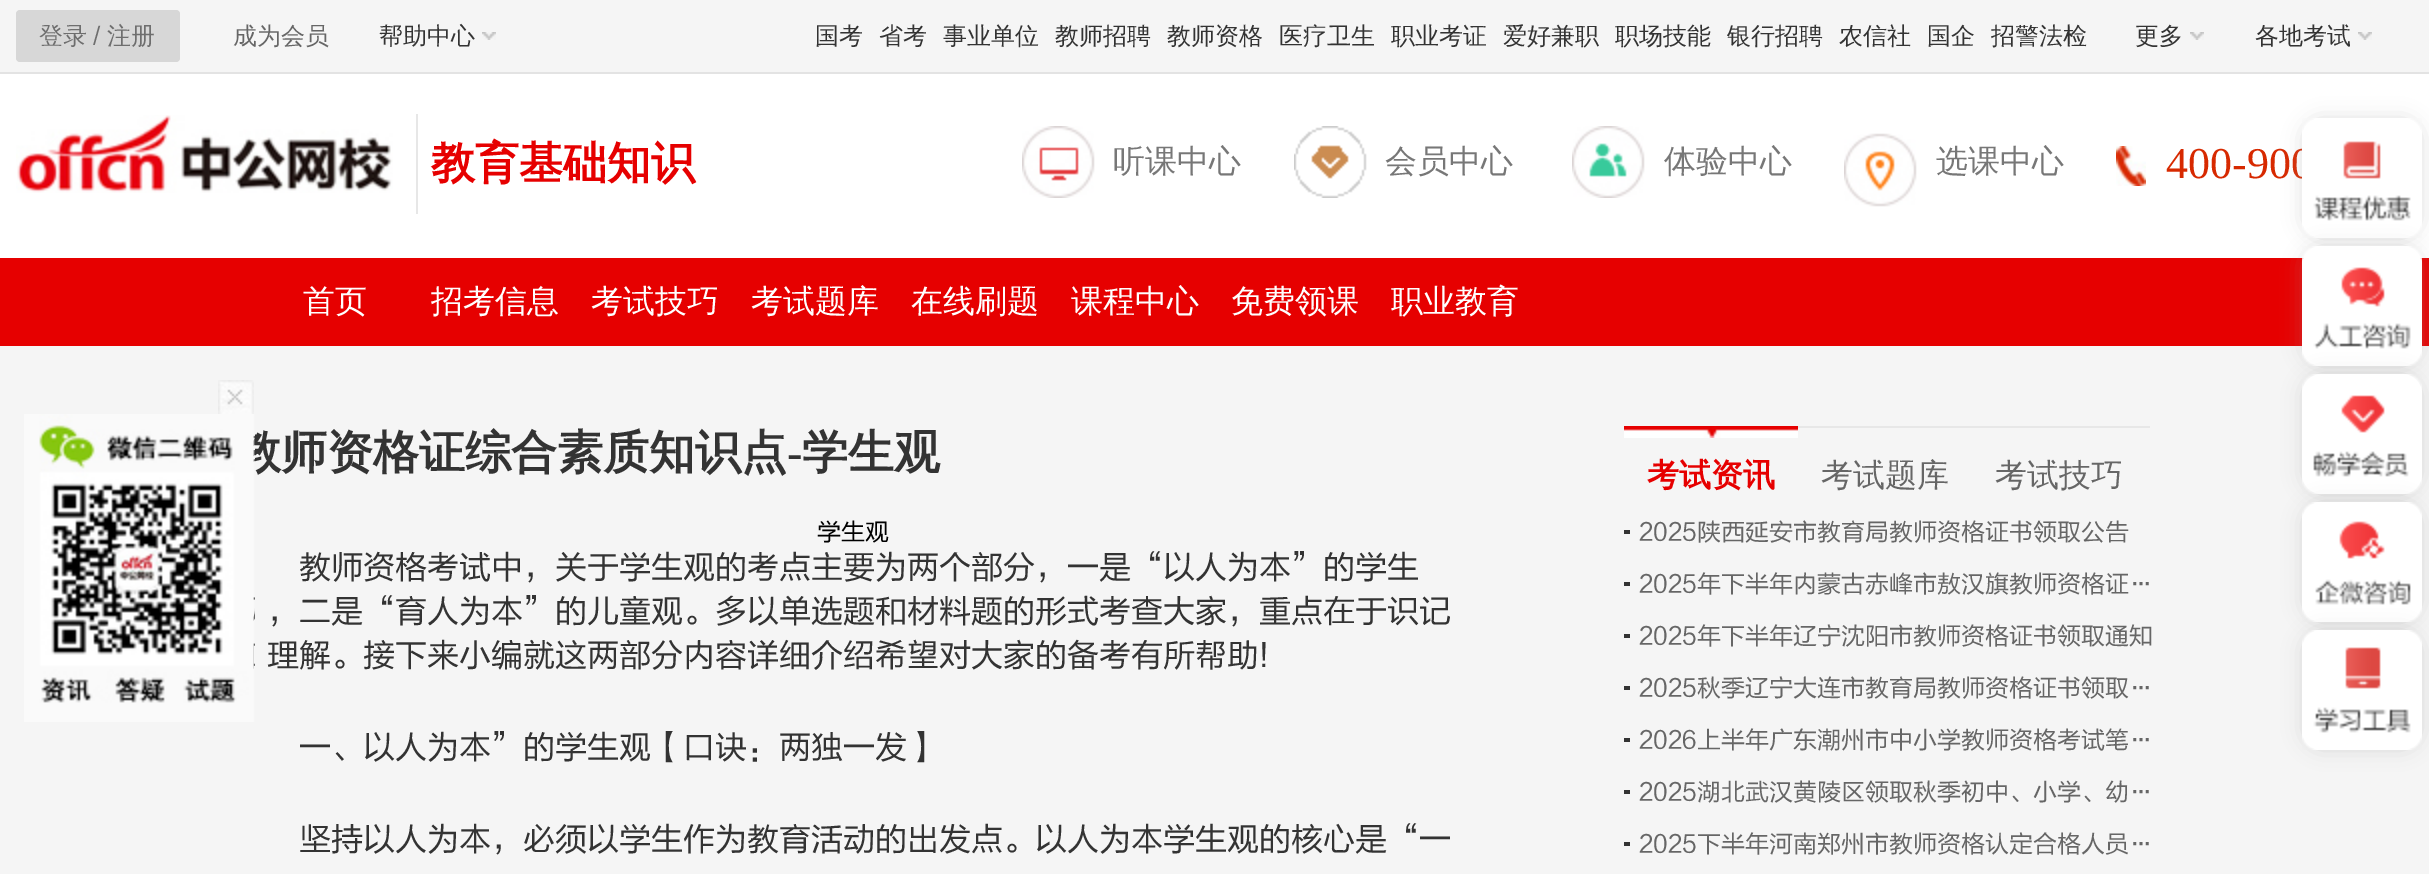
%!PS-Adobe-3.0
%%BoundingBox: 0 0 2429 874
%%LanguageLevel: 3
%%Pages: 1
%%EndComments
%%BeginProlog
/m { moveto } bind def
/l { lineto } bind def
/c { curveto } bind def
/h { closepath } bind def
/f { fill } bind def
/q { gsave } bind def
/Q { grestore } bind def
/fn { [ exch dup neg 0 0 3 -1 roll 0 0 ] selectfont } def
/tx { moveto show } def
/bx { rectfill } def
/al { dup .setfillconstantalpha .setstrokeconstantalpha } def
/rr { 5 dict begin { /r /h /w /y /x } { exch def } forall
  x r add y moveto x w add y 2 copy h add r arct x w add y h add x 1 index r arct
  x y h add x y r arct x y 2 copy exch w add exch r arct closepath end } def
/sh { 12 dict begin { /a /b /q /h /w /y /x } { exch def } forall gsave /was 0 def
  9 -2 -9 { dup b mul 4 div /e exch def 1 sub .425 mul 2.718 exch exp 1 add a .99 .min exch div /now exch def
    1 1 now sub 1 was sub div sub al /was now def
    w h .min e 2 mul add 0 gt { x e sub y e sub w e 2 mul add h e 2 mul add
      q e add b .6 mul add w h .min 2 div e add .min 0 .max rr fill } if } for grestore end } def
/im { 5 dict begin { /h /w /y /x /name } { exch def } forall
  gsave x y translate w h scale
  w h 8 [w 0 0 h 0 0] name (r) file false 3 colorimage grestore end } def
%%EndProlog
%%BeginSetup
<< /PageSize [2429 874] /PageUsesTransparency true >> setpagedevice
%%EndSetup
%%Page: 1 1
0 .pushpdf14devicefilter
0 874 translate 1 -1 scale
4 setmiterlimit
0.961 setgray
0 0 2429 874 bx
1 setgray
0 74 2429 184 bx
0.89 setgray
0 72 2429 2 bx
0.843 setgray
16 10 164 52 4 rr f
/WenQuanYiZenHei-Medium 24 fn
0.431 setgray
(登录) 39 44 tx
/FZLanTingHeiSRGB-Regular 24 fn
(/) 93 44 tx
/WenQuanYiZenHei-Medium 24 fn
(注册) 107 44 tx
0.4 setgray
(成为会员) 233 44 tx
0.2 setgray
(帮助中心) 379 44 tx
(image0.raw) 482 32 14 8 im
(国考) 815 44 tx
(省考) 879 44 tx
(事业单位) 943 44 tx
(教师招聘) 1055 44 tx
(教师资格) 1167 44 tx
(医疗卫生) 1279 44 tx
(职业考证) 1391 44 tx
(爱好兼职) 1503 44 tx
(职场技能) 1615 44 tx
(银行招聘) 1727 44 tx
(农信社) 1839 44 tx
(国企) 1927 44 tx
(招警法检) 1991 44 tx
(更多) 2135 44 tx
(image0.raw) 2190 32 14 8 im
(各地考试) 2255 44 tx
(image0.raw) 2358 32 14 8 im
(image1.raw) 16 115 377 78 im
0.906 setgray
416 114 2 100 bx
/WenQuanYiZenHei-Bold 44 fn
0.902 0 0 setrgbcolor
(教育基础知识) 431 178 tx
(image2.raw) 1022 126 73 72 im
/WenQuanYiZenHei-Medium 32 fn
0.467 setgray
(听课中心) 1113 172 tx
(image3.raw) 1294 126 73 72 im
(会员中心) 1385 172 tx
(image4.raw) 1572 126 73 72 im
(体验中心) 1664 172 tx
(image5.raw) 1844 133 73 74 im
(选课中心) 1936 172 tx
(image6.raw) 2116 146 30 40 im
/LiberationSerif-Regular 44 fn
0.843 0.161 0 setrgbcolor
(400-900) 2166 178 tx
0.902 0 0 setrgbcolor
0 258 2429 88 bx
/WenQuanYiZenHei-Medium 32 fn
1 setgray
(首页) 303 312 tx
(招考信息) 431 312 tx
(考试技巧) 591 312 tx
(考试题库) 751 312 tx
(在线刷题) 911 312 tx
(课程中心) 1071 312 tx
(免费领课) 1231 312 tx
(职业教育) 1391 312 tx
0.6 setgray
2302 118 120 120 20 10 0.3 sh
(image7.raw) 2302 118 120 120 im
2302 246 120 120 20 10 0.3 sh
(image8.raw) 2302 246 120 120 im
q
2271 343 m 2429 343 l 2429 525 l 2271 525 l h 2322 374 m 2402 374 l 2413 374 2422 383 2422 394 c 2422 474 l 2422 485 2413 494 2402 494 c 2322 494 l 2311 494 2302 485 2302 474 c 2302 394 l 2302 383 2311 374 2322 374 c h eoclip newpath
2302 374 120 120 20 10 0.3 sh
Q
(image9.raw) 2302 374 120 120 im
2302 502 120 120 20 10 0.3 sh
(image10.raw) 2302 502 120 120 im
2302 630 120 120 20 10 0.3 sh
(image11.raw) 2302 630 120 120 im
(image12.raw) 218 380 36 34 im
/WenQuanYiZenHei-Bold 46 fn
0.2 setgray
(教师资格证综合素质知识点) 235 468 tx
(image13.raw) 24 414 231 308 im
/LiberationSerif-Bold 46 fn
(-) 787 468 tx
/WenQuanYiZenHei-Bold 46 fn
(学生观) 802 468 tx
/FZLanTingHeiSRGB-Regular 24 fn
0 setgray
(学生观) 817 540 tx
/FZLanTingHeiSRGB-Regular 32 fn
0.2 setgray
(教师资格考试中，关于学生观的考点主要为两个部分，一是“以人为本”的学生) 299 578 tx
(，二是“育人为本”的儿童观。多以单选题和材料题的形式考查大家，重点在于识记) 267 622 tx
(理解。接下来小编就这两部分内容详细介绍希望对大家的备考有所帮助!) 267 666 tx
(一、以人为本”的学生观【口诀：两独一发】) 299 758 tx
(坚持以人为本，必须以学生作为教育活动的出发点。以人为本学生观的核心是“一) 299 850 tx
0.906 setgray
1798 426 352 2 bx
(image14.raw) 1624 426 174 12 im
/WenQuanYiZenHei-Bold 32 fn
0.902 0 0 setrgbcolor
(考试资讯) 1647 486 tx
/WenQuanYiZenHei-Medium 32 fn
0.4 setgray
(考试题库) 1821 486 tx
(考试技巧) 1995 486 tx
0.2 setgray
1624 530 6 4 bx
/FZLanTingHeiSRGB-Regular 24 fn
0.4 setgray
(2025陕西延安市教育局教师资格证书领取公告) 1639 540 tx
0.2 setgray
1624 582 6 4 bx
0.4 setgray
(2025年下半年内蒙古赤峰市敖汉旗教师资格证…) 1639 592 tx
0.2 setgray
1624 634 6 4 bx
0.4 setgray
(2025年下半年辽宁沈阳市教师资格证书领取通知) 1639 644 tx
0.2 setgray
1624 686 6 4 bx
0.4 setgray
(2025秋季辽宁大连市教育局教师资格证书领取…) 1639 696 tx
0.2 setgray
1624 738 6 4 bx
0.4 setgray
(2026上半年广东潮州市中小学教师资格考试笔…) 1639 748 tx
0.2 setgray
1624 790 6 4 bx
0.4 setgray
(2025湖北武汉黄陵区领取秋季初中、小学、幼…) 1639 800 tx
0.2 setgray
1624 842 6 4 bx
0.4 setgray
(2025下半年河南郑州市教师资格认定合格人员…) 1639 852 tx
.poppdf14devicefilter showpage
%%EOF
